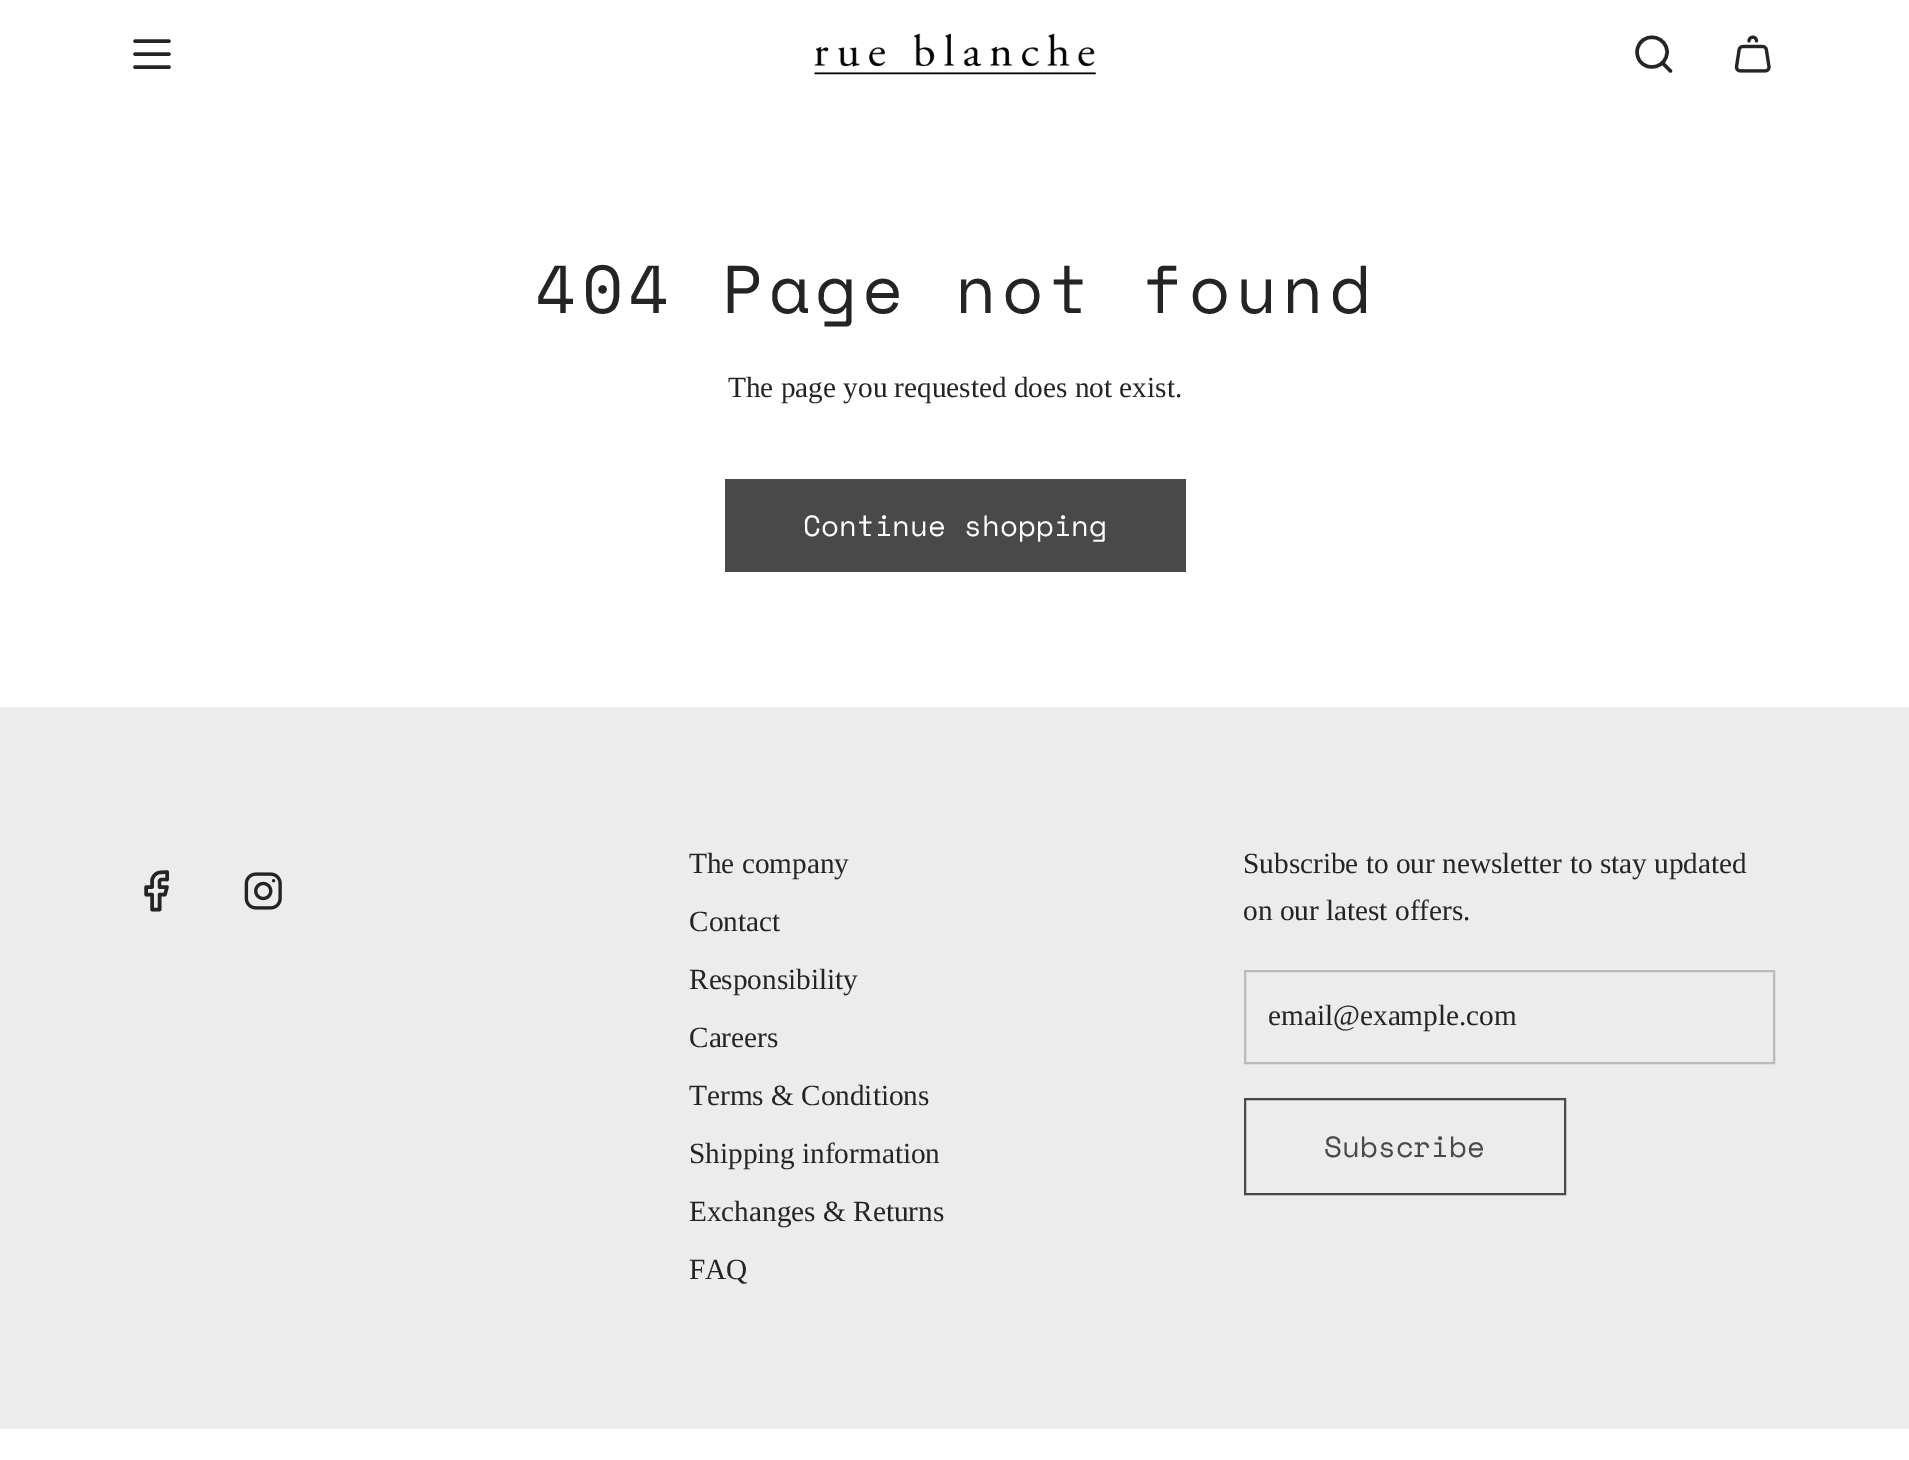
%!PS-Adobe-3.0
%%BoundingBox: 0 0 1909 1460
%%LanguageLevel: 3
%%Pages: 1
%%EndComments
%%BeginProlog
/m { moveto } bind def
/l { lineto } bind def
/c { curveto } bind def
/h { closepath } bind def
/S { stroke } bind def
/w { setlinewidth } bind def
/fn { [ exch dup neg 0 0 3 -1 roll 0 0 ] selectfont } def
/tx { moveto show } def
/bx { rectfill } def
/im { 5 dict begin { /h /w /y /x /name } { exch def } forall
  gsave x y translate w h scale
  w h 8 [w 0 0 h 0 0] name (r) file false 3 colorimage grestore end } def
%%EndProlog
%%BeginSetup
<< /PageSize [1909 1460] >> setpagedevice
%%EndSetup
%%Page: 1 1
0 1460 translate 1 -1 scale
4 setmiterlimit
1 setgray
0 0 1909 1460 bx
0.149 0.141 0.157 setrgbcolor
3.4 w
1 setlinecap
1 setlinejoin
135 41 m 169 41 l 135 54 m 169 54 l 135 67 m 169 67 l S
(image0.raw) 814 33 282 42 im
1663 63.5 m 1670.5 71 l 1637 52 m 1637 55 1638 58 1639.5 60.5 c 1647.5 72.5 1667 67 1667 52 c 1667 37.5 1647.5 31.5 1639.5 44 c 1638 46.5 1637 49 1637 52 c h S
(image1.raw) 1734 35 37 38 im
/SpaceMono-Regular 67.5 fn
0.141 setgray
535 313 m 5.4 0 (404 Page not found) ashow
/LiberationSerif-Regular 29.25 fn
(The page you requested does not exist.) 728 397 tx
0.286 setgray
725 479 461 93 bx
/SpaceMono-Regular 29.25 fn
1 setgray
(Continue shopping) 803 536 tx
0.925 setgray
0 707 1909 722 bx
0.141 setgray
167 872 m 159.5 872.5 l 155.5 873 152.5 876.5 152 880.5 c 152 887 l 146 887 l 146 894.5 l 152 894.5 l 152 909.5 l 159.5 909.5 l 159.5 894.5 l 165 894.5 l 167 887 l 159.5 887 l 159.5 878.5 158.5 879.5 167 879.5 c h S
(image2.raw) 244 872 38 38 im
/LiberationSerif-Regular 29.25 fn
(The company) 689 873 tx
(Contact) 689 931 tx
(Responsibility) 689 989 tx
(Careers) 689 1047 tx
(Terms & Conditions) 689 1105 tx
(Shipping information) 689 1163 tx
(Exchanges & Returns) 689 1221 tx
(FAQ) 689 1279 tx
(Subscribe to our newsletter to stay updated) 1243 873 tx
(on our latest offers.) 1243 920 tx
0.729 setgray
2 w
0 setlinecap
0 setlinejoin
1245 971 529 92 rectstroke
0.141 setgray
(email@example.com) 1268 1025 tx
0.286 setgray
1245 1099 320 95 rectstroke
/SpaceMono-Regular 29.25 fn
(Subscribe) 1324 1157 tx
showpage
%%EOF
